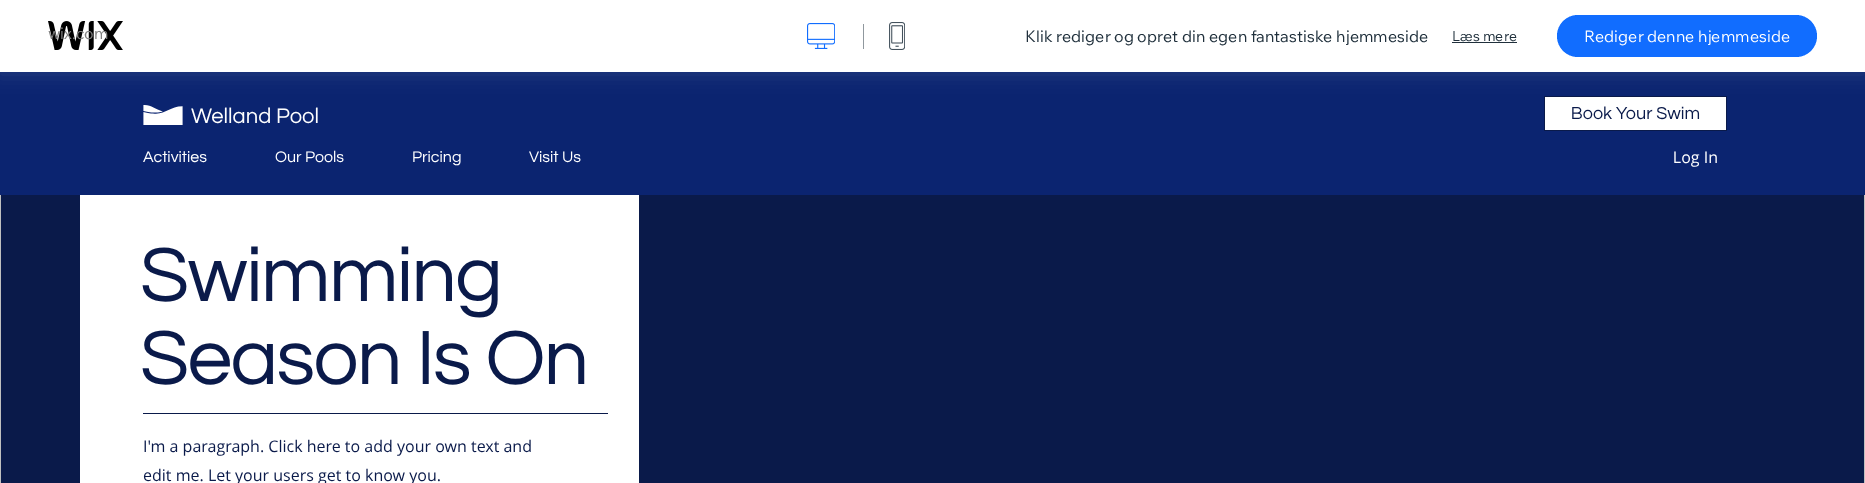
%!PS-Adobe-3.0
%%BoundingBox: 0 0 1865 483
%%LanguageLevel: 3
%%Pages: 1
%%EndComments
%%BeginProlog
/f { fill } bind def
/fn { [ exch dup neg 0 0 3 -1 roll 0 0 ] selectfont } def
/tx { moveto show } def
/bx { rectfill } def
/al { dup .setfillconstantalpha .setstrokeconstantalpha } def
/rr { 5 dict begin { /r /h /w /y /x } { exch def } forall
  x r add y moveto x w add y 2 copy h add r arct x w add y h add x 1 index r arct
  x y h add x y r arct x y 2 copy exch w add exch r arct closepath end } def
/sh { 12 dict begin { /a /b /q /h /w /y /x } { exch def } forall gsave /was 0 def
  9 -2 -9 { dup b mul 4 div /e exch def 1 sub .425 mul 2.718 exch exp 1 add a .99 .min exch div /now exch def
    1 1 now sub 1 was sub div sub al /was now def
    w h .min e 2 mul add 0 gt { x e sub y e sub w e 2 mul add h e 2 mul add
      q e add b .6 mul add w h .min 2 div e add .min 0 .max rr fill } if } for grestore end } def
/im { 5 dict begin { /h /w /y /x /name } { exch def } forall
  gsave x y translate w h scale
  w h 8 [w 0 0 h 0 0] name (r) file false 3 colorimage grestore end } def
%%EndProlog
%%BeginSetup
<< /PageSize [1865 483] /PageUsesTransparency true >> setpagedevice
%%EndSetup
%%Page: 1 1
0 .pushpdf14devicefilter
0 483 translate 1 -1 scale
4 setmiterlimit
1 setgray
0 0 1865 483 bx
(image3.raw) 0 72 1865 411 im
0.506 0.635 0.714 setrgbcolor
0 2 1865 72 0 9 0.2 sh
1 setgray
0 0 1865 72 bx
(image0.raw) 48 21 75 29 im
/WixMadeforText-Regular 16 fn
0.502 setgray
(wix.com) 48 39 tx
(image1.raw) 807 23 28 26 im
0.565 0.596 0.62 setrgbcolor
863 24 1 25 bx
(image2.raw) 889 22 16 28 im
0.125 0.188 0.235 setrgbcolor
(Klik rediger og opret din egen fantastiske hjemmeside) 1025 42 tx
/WixMadeforText-Regular 14 fn
(Læs mere) 1452 41 tx
1452 42 65 1 bx
0.067 0.427 1 setrgbcolor
1557 15 260 42 21 rr f
/WixMadeforText-Regular 16 fn
1 setgray
(Rediger denne hjemmeside) 1584 42 tx
.poppdf14devicefilter showpage
%%EOF
